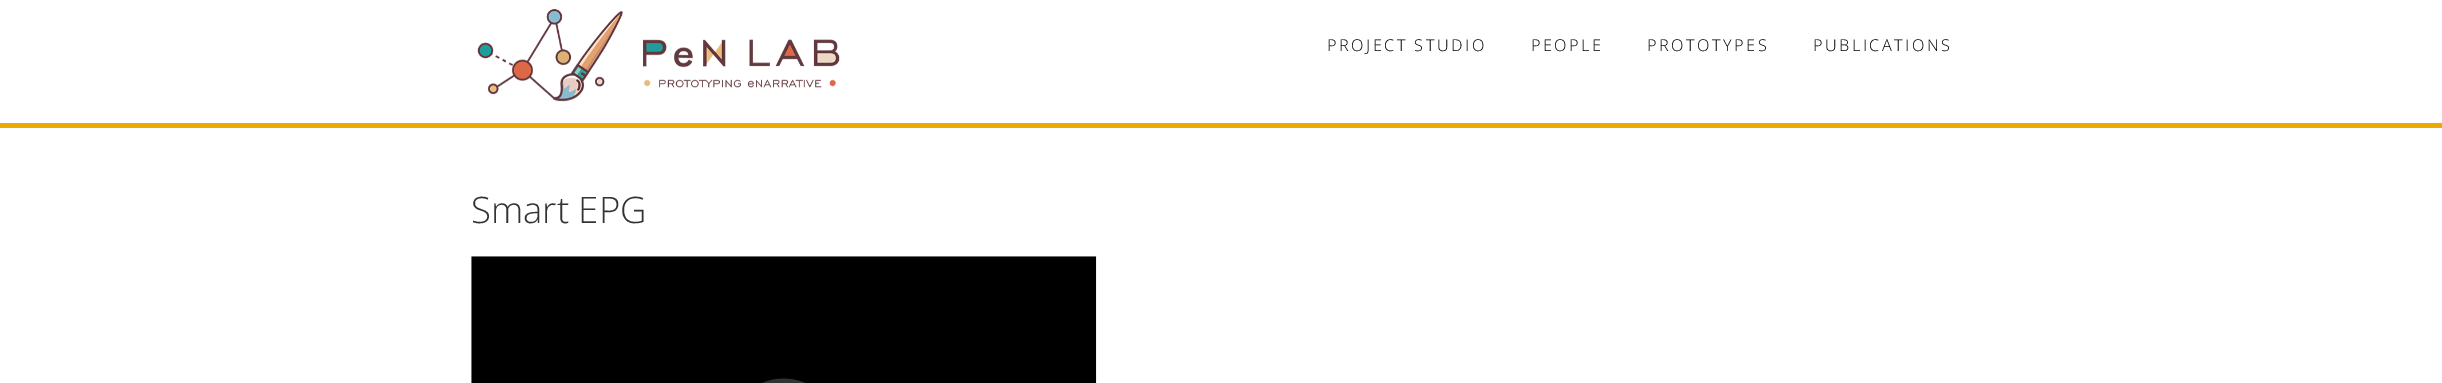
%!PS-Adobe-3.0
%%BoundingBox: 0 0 2442 383
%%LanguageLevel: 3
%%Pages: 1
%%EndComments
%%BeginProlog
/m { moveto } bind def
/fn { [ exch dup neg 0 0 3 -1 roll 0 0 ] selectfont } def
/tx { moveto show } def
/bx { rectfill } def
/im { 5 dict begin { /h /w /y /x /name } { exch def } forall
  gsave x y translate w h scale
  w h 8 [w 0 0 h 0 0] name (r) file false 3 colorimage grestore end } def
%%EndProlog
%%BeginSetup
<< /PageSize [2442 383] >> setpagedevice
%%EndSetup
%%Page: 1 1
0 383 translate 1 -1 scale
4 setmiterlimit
1 setgray
0 0 2442 383 bx
0.918 0.667 0 setrgbcolor
0 123 2442 5 bx
(image0.raw) 477 9 363 93 im
/OpenSans-Light 16.25 fn
0 setgray
1327 51 m 2.5 0 (PROJECT STUDIO) ashow
1531 51 m 2.5 0 (PEOPLE) ashow
1647 51 m 2.5 0 (PROTOTYPES) ashow
1813 51 m 2.5 0 (PUBLICATIONS) ashow
/OpenSans-Light 36.5 fn
0.2 setgray
(Smart EPG) 471 223 tx
(image1.raw) 471 256 626 127 im
showpage
%%EOF
